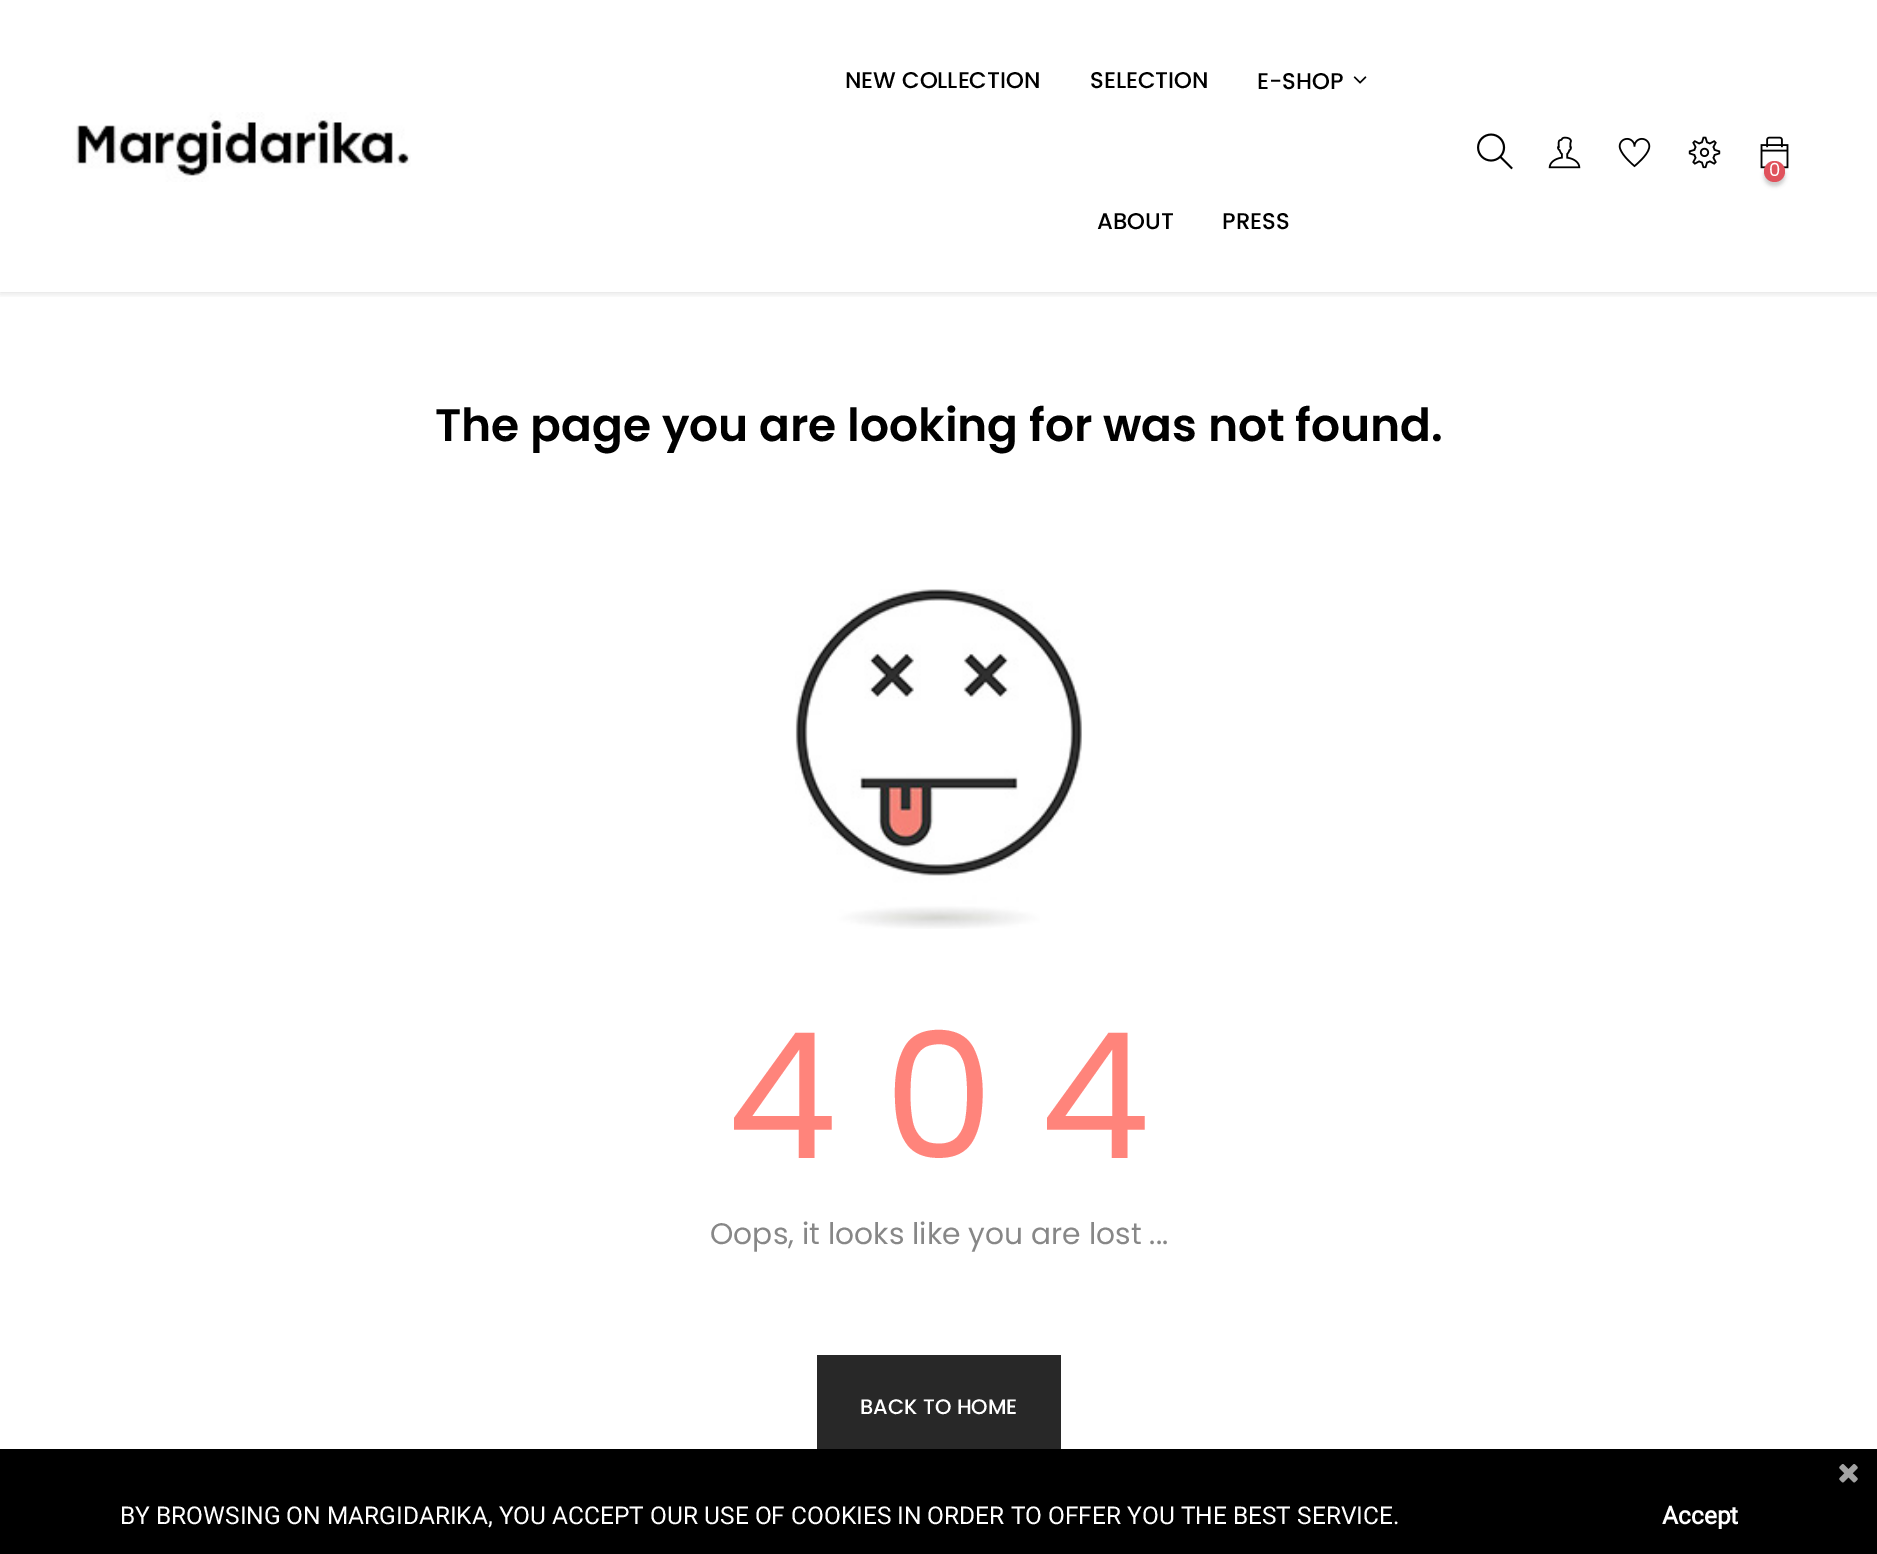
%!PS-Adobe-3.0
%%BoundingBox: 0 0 1877 1554
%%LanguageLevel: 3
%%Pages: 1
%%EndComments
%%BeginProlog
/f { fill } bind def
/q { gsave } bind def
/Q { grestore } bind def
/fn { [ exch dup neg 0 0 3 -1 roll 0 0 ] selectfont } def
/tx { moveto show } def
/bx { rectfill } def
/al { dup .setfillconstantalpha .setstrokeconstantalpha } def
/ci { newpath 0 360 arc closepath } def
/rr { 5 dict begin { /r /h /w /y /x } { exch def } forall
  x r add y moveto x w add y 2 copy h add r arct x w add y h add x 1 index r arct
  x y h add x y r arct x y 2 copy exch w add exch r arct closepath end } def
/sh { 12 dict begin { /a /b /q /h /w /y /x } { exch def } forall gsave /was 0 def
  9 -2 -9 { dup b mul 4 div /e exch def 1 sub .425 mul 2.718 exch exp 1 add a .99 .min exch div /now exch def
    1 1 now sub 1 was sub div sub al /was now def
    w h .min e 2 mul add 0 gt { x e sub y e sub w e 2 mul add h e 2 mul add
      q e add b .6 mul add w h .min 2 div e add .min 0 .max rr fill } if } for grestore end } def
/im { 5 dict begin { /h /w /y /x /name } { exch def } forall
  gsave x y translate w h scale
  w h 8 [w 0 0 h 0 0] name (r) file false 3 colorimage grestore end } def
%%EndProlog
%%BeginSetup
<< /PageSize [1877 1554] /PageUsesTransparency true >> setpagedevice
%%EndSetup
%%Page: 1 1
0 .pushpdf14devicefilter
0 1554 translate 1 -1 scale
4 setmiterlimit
1 setgray
0 0 1877 1554 bx
q
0 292 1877 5 rectclip
0 setgray
0 0 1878 292 0 4.5 0.15 sh
Q
(image0.raw) 72 112 339 70 im
/Poppins-Medium 22.75 fn
0 setgray
(NEW COLLECTION) 845 88 tx
(SELECTION) 1090 88 tx
(E-SHOP) 1257 89 tx
(image1.raw) 1353 76 14 8 im
(ABOUT) 1097 229 tx
(PRESS) 1222 229 tx
(image2.raw) 1477 133 36 37 im
(image3.raw) 1548 136 33 33 im
(image4.raw) 1618 137 33 31 im
(image5.raw) 1688 136 33 33 im
(image6.raw) 1760 136 29 33 im
1764 165 21 21 10.5 2 0.2 sh
0.878 0.322 0.361 setrgbcolor
1774.5 171.5 10.5 ci f
/Poppins-Regular 18 fn
1 setgray
(0) 1769 176 tx
/Poppins-SemiBold 45.5 fn
0 setgray
(The page you are looking for was not found.) 435 441 tx
(image7.raw) 795 589 287 340 im
/Poppins-Regular 175 fn
1 0.518 0.482 setrgbcolor
(4 0 4) 727 1158 tx
/Poppins-Regular 29.75 fn
0.529 setgray
(Oops, it looks like you are lost ...) 710 1244 tx
0.157 setgray
817 1355 244 94 bx
/Poppins-Medium 21 fn
1 setgray
(BACK TO HOME) 860 1414 tx
0 setgray
0 1449 1877 105 bx
(image8.raw) 1839 1464 19 19 im
/Roboto-Regular 24.5 fn
1 setgray
(BY BROWSING ON MARGIDARIKA, YOU ACCEPT OUR USE OF COOKIES IN ORDER TO OFFER YOU THE BEST SERVICE.) 120 1524 tx
/Roboto-Bold 24.5 fn
(Accept) 1662 1524 tx
.poppdf14devicefilter showpage
%%EOF
